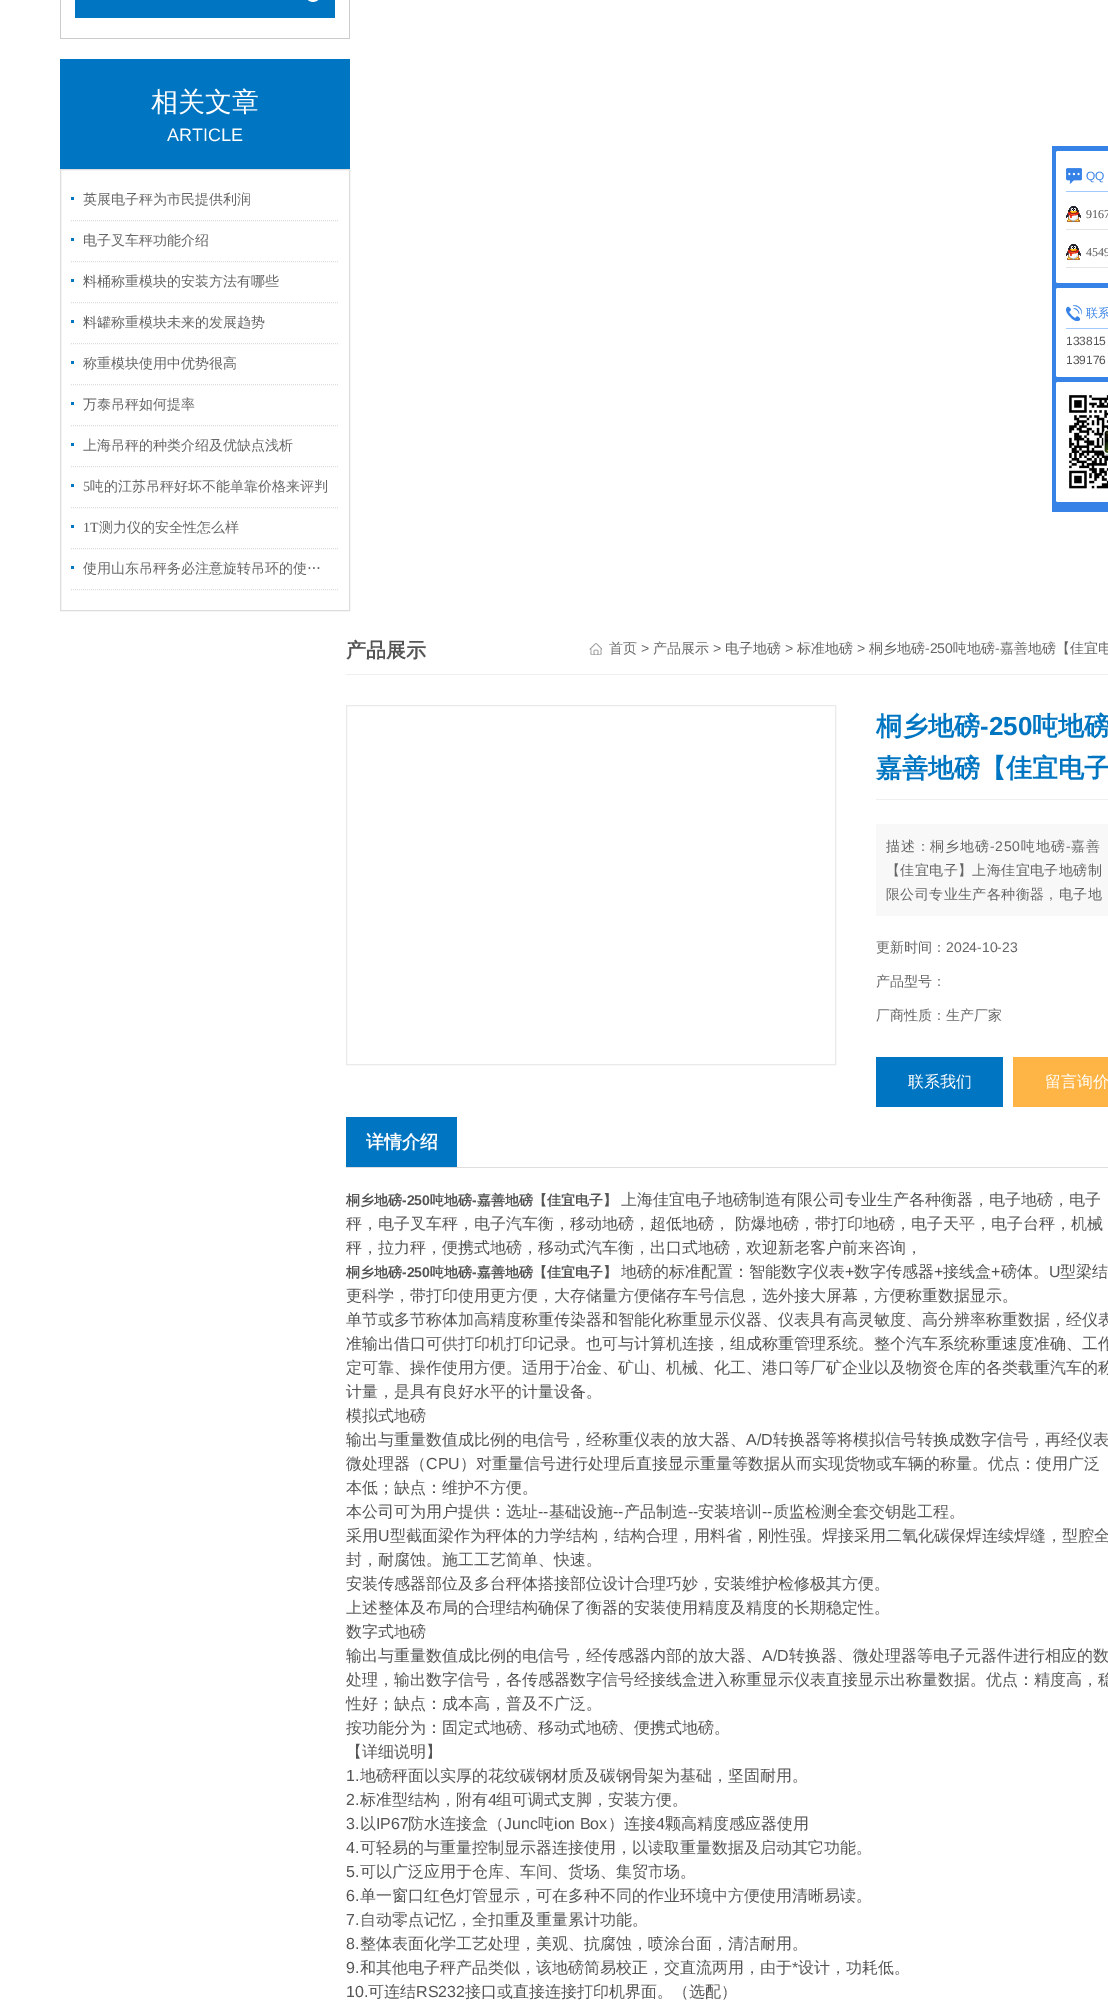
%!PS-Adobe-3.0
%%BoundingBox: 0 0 1108 2005
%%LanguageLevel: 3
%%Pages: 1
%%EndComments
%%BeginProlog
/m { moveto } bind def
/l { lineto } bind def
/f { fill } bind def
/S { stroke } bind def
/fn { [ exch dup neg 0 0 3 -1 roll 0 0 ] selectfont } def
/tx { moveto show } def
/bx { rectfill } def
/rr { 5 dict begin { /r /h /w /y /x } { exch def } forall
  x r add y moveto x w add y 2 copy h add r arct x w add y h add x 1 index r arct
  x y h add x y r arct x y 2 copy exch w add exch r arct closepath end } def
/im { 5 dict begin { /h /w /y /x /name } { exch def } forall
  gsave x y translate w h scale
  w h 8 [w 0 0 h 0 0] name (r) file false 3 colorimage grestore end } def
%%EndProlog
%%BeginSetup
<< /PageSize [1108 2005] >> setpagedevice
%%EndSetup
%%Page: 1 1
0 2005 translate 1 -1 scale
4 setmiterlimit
1 setgray
0 0 1108 2005 bx
0.8 setgray
349 0 1 39 bx
60 38 290 1 bx
60 0 1 39 bx
0 0.459 0.757 setrgbcolor
75 0 260 18 bx
(image0.raw) 307 0 12 2 im
60 59 290 110 bx
/WenQuanYiZenHei-Medium 27 fn
1 setgray
(相关文章) 151 111 tx
/LiberationSans-Regular 18 fn
(ARTICLE) 167 141 tx
0.867 setgray
60.5 169.5 289 441 rectstroke
[1 1] 0 setdash
71 220.5 m 339 220.5 l S
0 0.459 0.757 setrgbcolor
71 197 3 3 bx
/WenQuanYiZenHei-Medium 14 fn
0.4 setgray
(英展电子秤为市民提供利润) 83 204 tx
0.867 setgray
71 261.5 m 339 261.5 l S
0 0.459 0.757 setrgbcolor
71 238 3 3 bx
0.4 setgray
(电子叉车秤功能介绍) 83 245 tx
0.867 setgray
71 302.5 m 339 302.5 l S
0 0.459 0.757 setrgbcolor
71 279 3 3 bx
0.4 setgray
(料桶称重模块的安装方法有哪些) 83 286 tx
0.867 setgray
71 343.5 m 339 343.5 l S
0 0.459 0.757 setrgbcolor
71 320 3 3 bx
0.4 setgray
(料罐称重模块未来的发展趋势) 83 327 tx
0.867 setgray
71 384.5 m 339 384.5 l S
0 0.459 0.757 setrgbcolor
71 361 3 3 bx
0.4 setgray
(称重模块使用中优势很高) 83 368 tx
0.867 setgray
71 425.5 m 339 425.5 l S
0 0.459 0.757 setrgbcolor
71 402 3 3 bx
0.4 setgray
(万泰吊秤如何提率) 83 409 tx
0.867 setgray
71 466.5 m 339 466.5 l S
0 0.459 0.757 setrgbcolor
71 443 3 3 bx
0.4 setgray
(上海吊秤的种类介绍及优缺点浅析) 83 450 tx
0.867 setgray
71 507.5 m 339 507.5 l S
0 0.459 0.757 setrgbcolor
71 484 3 3 bx
/LiberationSerif-Regular 14 fn
0.4 setgray
(5) 83 491 tx
/WenQuanYiZenHei-Medium 14 fn
(吨的江苏吊秤好坏不能单靠价格来评判) 90 491 tx
0.867 setgray
71 548.5 m 339 548.5 l S
0 0.459 0.757 setrgbcolor
71 525 3 3 bx
/LiberationSerif-Regular 14 fn
0.4 setgray
(1T) 83 532 tx
/WenQuanYiZenHei-Medium 14 fn
(测力仪的安全性怎么样) 99 532 tx
0.867 setgray
71 589.5 m 339 589.5 l S
0 0.459 0.757 setrgbcolor
71 566 3 3 bx
0.4 setgray
(使用山东吊秤务必注意旋转吊环的使…) 83 573 tx
0.937 setgray
346 674 762 1 bx
/WenQuanYiZenHei-Bold 20 fn
0.333 setgray
(产品展示) 346 657 tx
(image1.raw) 589 643 13 12 im
/WenQuanYiZenHei-Medium 14 fn
0.4 setgray
(首页) 609 653 tx
/LiberationSans-Regular 14 fn
(>) 641 653 tx
/WenQuanYiZenHei-Medium 14 fn
(产品展示) 653 653 tx
/LiberationSans-Regular 14 fn
(>) 713 653 tx
/WenQuanYiZenHei-Medium 14 fn
(电子地磅) 725 653 tx
/LiberationSans-Regular 14 fn
(>) 785 653 tx
/WenQuanYiZenHei-Medium 14 fn
(标准地磅) 797 653 tx
/LiberationSans-Regular 14 fn
(>) 857 653 tx
/WenQuanYiZenHei-Medium 14 fn
(桐乡地磅) 869 653 tx
/LiberationSans-Regular 14 fn
(-250) 925 653 tx
/WenQuanYiZenHei-Medium 14 fn
(吨地磅) 953 653 tx
/LiberationSans-Regular 14 fn
(-) 995 653 tx
/WenQuanYiZenHei-Medium 14 fn
(嘉善地磅【佳宜电) 1000 653 tx
0.918 setgray
[] 0 setdash
346.5 705.5 489 359 rectstroke
0.937 setgray
876 799 232 1 bx
/WenQuanYiZenHei-Bold 26 fn
0 0.459 0.757 setrgbcolor
(桐乡地磅) 876 735 tx
/LiberationSans-Bold 26 fn
(-250) 980 735 tx
/WenQuanYiZenHei-Bold 26 fn
(吨地磅) 1032 735 tx
(嘉善地磅【佳宜电子) 876 777 tx
0.973 setgray
876 824 232 92 bx
/WenQuanYiZenHei-Medium 14 fn
0.4 setgray
886 851 m 0.75 0 (描述：桐乡地磅) ashow
/LiberationSans-Regular 14 fn
990 851 m 0.75 0 (-250) ashow
/WenQuanYiZenHei-Medium 14 fn
1021 851 m 0.75 0 (吨地磅) ashow
/LiberationSans-Regular 14 fn
1066 851 m 0.75 0 (-) ashow
/WenQuanYiZenHei-Medium 14 fn
1071 851 m 0.75 0 (嘉善) ashow
886 875 m 0.4 0 (【佳宜电子】上海佳宜电子地磅制) ashow
886 899 m 0.4 0 (限公司专业生产各种衡器，电子地) ashow
(更新时间：) 876 952 tx
/LiberationSans-Regular 14 fn
(2024-10-23) 946 952 tx
/WenQuanYiZenHei-Medium 14 fn
(产品型号：) 876 986 tx
(厂商性质：生产厂家) 876 1020 tx
0 0.459 0.757 setrgbcolor
876 1057 127 50 bx
/WenQuanYiZenHei-Medium 16 fn
1 setgray
(联系我们) 908 1087 tx
1 0.71 0.271 setrgbcolor
1013 1057 95 50 bx
1 setgray
(留言询价) 1045 1087 tx
0.871 setgray
346 1167 762 1 bx
0 0.459 0.757 setrgbcolor
346 1117 111 50 bx
/WenQuanYiZenHei-Bold 18 fn
1 setgray
(详情介绍) 366 1148 tx
/WenQuanYiZenHei-Bold 14 fn
0.333 setgray
(桐乡地磅) 346 1205 tx
/LiberationSans-Bold 14 fn
(-250) 402 1205 tx
/WenQuanYiZenHei-Bold 14 fn
(吨地磅) 430 1205 tx
/LiberationSans-Bold 14 fn
(-) 472 1205 tx
/WenQuanYiZenHei-Bold 14 fn
(嘉善地磅【佳宜电子】) 477 1205 tx
/WenQuanYiZenHei-Medium 16 fn
(上海佳宜电子地磅制造有限公司专业生产各种衡器，电子地磅，电子) 621 1205 tx
(秤，电子叉车秤，电子汽车衡，移动地磅，超低地磅， 防爆地磅，带打印地磅，电子天平，电子台秤，机械) 346 1229 tx
(秤，拉力秤，便携式地磅，移动式汽车衡，出口式地磅，欢迎新老客户前来咨询，) 346 1253 tx
/WenQuanYiZenHei-Bold 14 fn
(桐乡地磅) 346 1277 tx
/LiberationSans-Bold 14 fn
(-250) 402 1277 tx
/WenQuanYiZenHei-Bold 14 fn
(吨地磅) 430 1277 tx
/LiberationSans-Bold 14 fn
(-) 472 1277 tx
/WenQuanYiZenHei-Bold 14 fn
(嘉善地磅【佳宜电子】) 477 1277 tx
/WenQuanYiZenHei-Medium 16 fn
(地磅的标准配置：智能数字仪表) 621 1277 tx
/LiberationSans-Regular 16 fn
(+) 845 1277 tx
/WenQuanYiZenHei-Medium 16 fn
(数字传感器) 854 1277 tx
/LiberationSans-Regular 16 fn
(+) 934 1277 tx
/WenQuanYiZenHei-Medium 16 fn
(接线盒) 943 1277 tx
/LiberationSans-Regular 16 fn
(+) 991 1277 tx
/WenQuanYiZenHei-Medium 16 fn
(磅体。) 1001 1277 tx
/LiberationSans-Regular 16 fn
(U) 1049 1277 tx
/WenQuanYiZenHei-Medium 16 fn
(型梁结) 1060 1277 tx
(更科学，带打印使用更方便，大存储量方便储存车号信息，选外接大屏幕，方便称重数据显示。) 346 1301 tx
(单节或多节称体加高精度称重传染器和智能化称重显示仪器、仪表具有高灵敏度、高分辨率称重数据，经仪表) 346 1325 tx
(准输出借口可供打印机打印记录。也可与计算机连接，组成称重管理系统。整个汽车系统称重速度准确、工作) 346 1349 tx
(定可靠、操作使用方便。适用于冶金、矿山、机械、化工、港口等厂矿企业以及物资仓库的各类载重汽车的称) 346 1373 tx
(计量，是具有良好水平的计量设备。) 346 1397 tx
(模拟式地磅) 346 1421 tx
(输出与重量数值成比例的电信号，经称重仪表的放大器、) 346 1445 tx
/LiberationSans-Regular 16 fn
(A/D) 746 1445 tx
/WenQuanYiZenHei-Medium 16 fn
(转换器等将模拟信号转换成数字信号，再经仪表) 773 1445 tx
(微处理器（) 346 1469 tx
/LiberationSans-Regular 16 fn
(CPU) 426 1469 tx
/WenQuanYiZenHei-Medium 16 fn
(）对重量信号进行处理后直接显示重量等数据从而实现货物或车辆的称量。优点：使用广泛) 460 1469 tx
(本低；缺点：维护不方便。) 346 1493 tx
(本公司可为用户提供：选址) 346 1517 tx
/LiberationSans-Regular 16 fn
(--) 538 1517 tx
/WenQuanYiZenHei-Medium 16 fn
(基础设施) 549 1517 tx
/LiberationSans-Regular 16 fn
(--) 613 1517 tx
/WenQuanYiZenHei-Medium 16 fn
(产品制造) 624 1517 tx
/LiberationSans-Regular 16 fn
(--) 688 1517 tx
/WenQuanYiZenHei-Medium 16 fn
(安装培训) 698 1517 tx
/LiberationSans-Regular 16 fn
(--) 762 1517 tx
/WenQuanYiZenHei-Medium 16 fn
(质监检测全套交钥匙工程。) 773 1517 tx
(采用) 346 1541 tx
/LiberationSans-Regular 16 fn
(U) 378 1541 tx
/WenQuanYiZenHei-Medium 16 fn
(型截面梁作为秤体的力学结构，结构合理，用料省，刚性强。焊接采用二氧化碳保焊连续焊缝，型腔全) 390 1541 tx
(封，耐腐蚀。施工工艺简单、快速。) 346 1565 tx
(安装传感器部位及多台秤体搭接部位设计合理巧妙，安装维护检修极其方便。) 346 1589 tx
(上述整体及布局的合理结构确保了衡器的安装使用精度及精度的长期稳定性。) 346 1613 tx
(数字式地磅) 346 1637 tx
(输出与重量数值成比例的电信号，经传感器内部的放大器、) 346 1661 tx
/LiberationSans-Regular 16 fn
(A/D) 762 1661 tx
/WenQuanYiZenHei-Medium 16 fn
(转换器、微处理器等电子元器件进行相应的数) 789 1661 tx
(处理，输出数字信号，各传感器数字信号经接线盒进入称重显示仪表直接显示出称量数据。优点：精度高，稳) 346 1685 tx
(性好；缺点：成本高，普及不广泛。) 346 1709 tx
(按功能分为：固定式地磅、移动式地磅、便携式地磅。) 346 1733 tx
(【详细说明】) 346 1757 tx
/LiberationSans-Regular 16 fn
(1.) 346 1781 tx
/WenQuanYiZenHei-Medium 16 fn
(地磅秤面以实厚的花纹碳钢材质及碳钢骨架为基础，坚固耐用。) 360 1781 tx
/LiberationSans-Regular 16 fn
(2.) 346 1805 tx
/WenQuanYiZenHei-Medium 16 fn
(标准型结构，附有) 360 1805 tx
/LiberationSans-Regular 16 fn
(4) 488 1805 tx
/WenQuanYiZenHei-Medium 16 fn
(组可调式支脚，安装方便。) 496 1805 tx
/LiberationSans-Regular 16 fn
(3.) 346 1829 tx
/WenQuanYiZenHei-Medium 16 fn
(以) 360 1829 tx
/LiberationSans-Regular 16 fn
(IP67) 376 1829 tx
/WenQuanYiZenHei-Medium 16 fn
(防水连接盒（) 408 1829 tx
/LiberationSans-Regular 16 fn
(Junc) 504 1829 tx
/WenQuanYiZenHei-Medium 16 fn
(吨) 538 1829 tx
/LiberationSans-Regular 16 fn
(ion Box) 554 1829 tx
/WenQuanYiZenHei-Medium 16 fn
(）连接) 608 1829 tx
/LiberationSans-Regular 16 fn
(4) 656 1829 tx
/WenQuanYiZenHei-Medium 16 fn
(颗高精度感应器使用) 665 1829 tx
/LiberationSans-Regular 16 fn
(4.) 346 1853 tx
/WenQuanYiZenHei-Medium 16 fn
(可轻易的与重量控制显示器连接使用，以读取重量数据及启动其它功能。) 360 1853 tx
/LiberationSans-Regular 16 fn
(5.) 346 1877 tx
/WenQuanYiZenHei-Medium 16 fn
(可以广泛应用于仓库、车间、货场、集贸市场。) 360 1877 tx
/LiberationSans-Regular 16 fn
(6.) 346 1901 tx
/WenQuanYiZenHei-Medium 16 fn
(单一窗口红色灯管显示，可在多种不同的作业环境中方便使用清晰易读。) 360 1901 tx
/LiberationSans-Regular 16 fn
(7.) 346 1925 tx
/WenQuanYiZenHei-Medium 16 fn
(自动零点记忆，全扣重及重量累计功能。) 360 1925 tx
/LiberationSans-Regular 16 fn
(8.) 346 1949 tx
/WenQuanYiZenHei-Medium 16 fn
(整体表面化学工艺处理，美观、抗腐蚀，喷涂台面，清洁耐用。) 360 1949 tx
/LiberationSans-Regular 16 fn
(9.) 346 1973 tx
/WenQuanYiZenHei-Medium 16 fn
(和其他电子秤产品类似，该地磅简易校正，交直流两用，由于) 360 1973 tx
/LiberationSans-Regular 16 fn
(*) 792 1973 tx
/WenQuanYiZenHei-Medium 16 fn
(设计，功耗低。) 798 1973 tx
/LiberationSans-Regular 16 fn
(10.) 346 1997 tx
/WenQuanYiZenHei-Medium 16 fn
(可连结) 368 1997 tx
/LiberationSans-Regular 16 fn
(RS232) 416 1997 tx
/WenQuanYiZenHei-Medium 16 fn
(接口或直接连接打印机界面。（选配）) 465 1997 tx
0.216 0.51 0.906 setrgbcolor
1052 146 56 366 bx
1 setgray
1056 151 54 132 2 rr f
(image2.raw) 1066 168 16 16 im
0.639 0.792 1 setrgbcolor
1066 191 42 1 bx
/LiberationSans-Regular 12 fn
0.216 0.51 0.906 setrgbcolor
(QQ) 1086 180 tx
(image3.raw) 1066 206 15 16 im
0.902 0.898 0.894 setrgbcolor
1066 229 42 1 bx
/LiberationSerif-Regular 12 fn
0.333 setgray
(9167) 1086 218 tx
(image3.raw) 1066 244 15 16 im
0.902 0.898 0.894 setrgbcolor
1066 267 42 1 bx
0.333 setgray
(4549) 1086 256 tx
1 setgray
1056 288 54 89 2 rr f
(image4.raw) 1066 305 16 16 im
0.639 0.792 1 setrgbcolor
1066 328 42 1 bx
/WenQuanYiZenHei-Medium 12 fn
0.216 0.51 0.906 setrgbcolor
(联系) 1086 317 tx
/LiberationSans-Regular 12 fn
0.333 setgray
(133815) 1066 345 tx
(139176) 1066 364 tx
1 setgray
1056 382 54 120 2 rr f
(image5.raw) 1068 394 40 95 im
showpage
%%EOF
